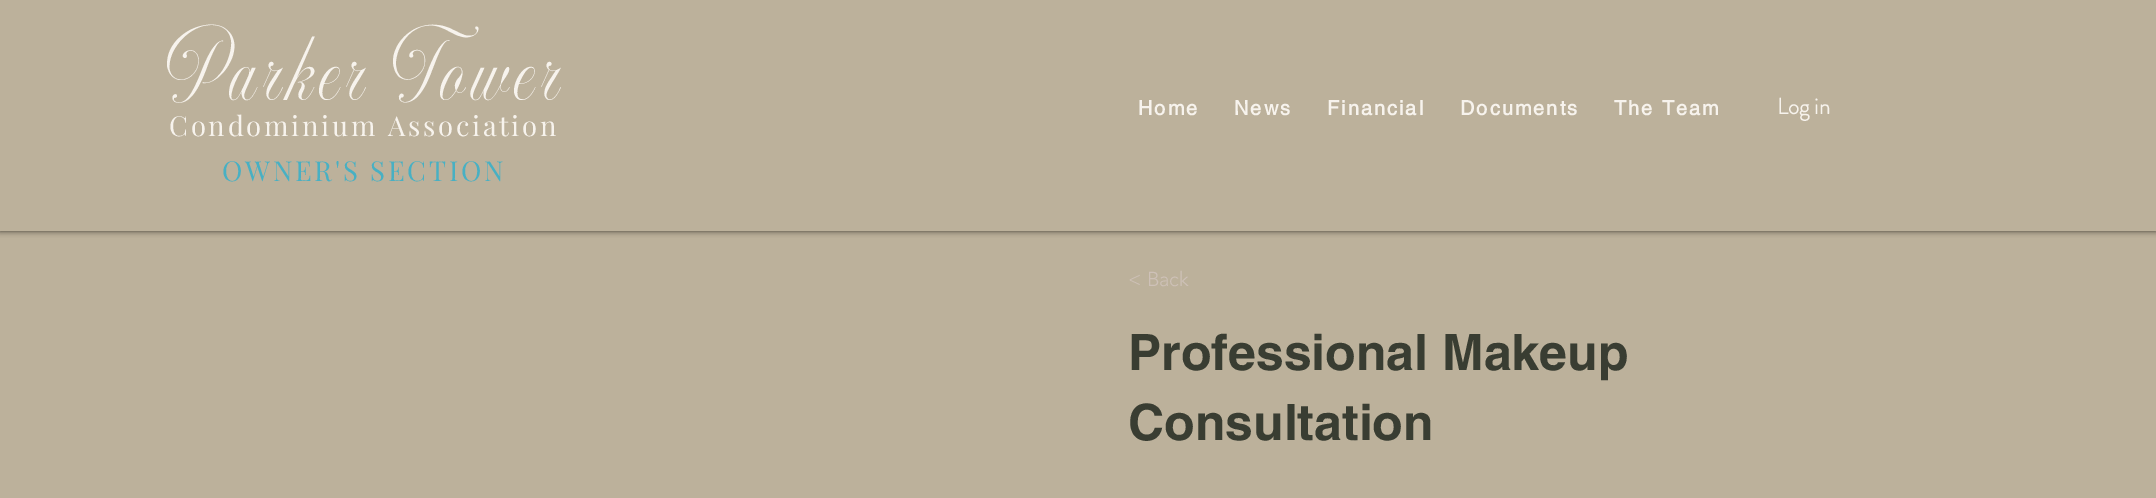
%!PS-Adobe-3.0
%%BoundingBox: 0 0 2156 498
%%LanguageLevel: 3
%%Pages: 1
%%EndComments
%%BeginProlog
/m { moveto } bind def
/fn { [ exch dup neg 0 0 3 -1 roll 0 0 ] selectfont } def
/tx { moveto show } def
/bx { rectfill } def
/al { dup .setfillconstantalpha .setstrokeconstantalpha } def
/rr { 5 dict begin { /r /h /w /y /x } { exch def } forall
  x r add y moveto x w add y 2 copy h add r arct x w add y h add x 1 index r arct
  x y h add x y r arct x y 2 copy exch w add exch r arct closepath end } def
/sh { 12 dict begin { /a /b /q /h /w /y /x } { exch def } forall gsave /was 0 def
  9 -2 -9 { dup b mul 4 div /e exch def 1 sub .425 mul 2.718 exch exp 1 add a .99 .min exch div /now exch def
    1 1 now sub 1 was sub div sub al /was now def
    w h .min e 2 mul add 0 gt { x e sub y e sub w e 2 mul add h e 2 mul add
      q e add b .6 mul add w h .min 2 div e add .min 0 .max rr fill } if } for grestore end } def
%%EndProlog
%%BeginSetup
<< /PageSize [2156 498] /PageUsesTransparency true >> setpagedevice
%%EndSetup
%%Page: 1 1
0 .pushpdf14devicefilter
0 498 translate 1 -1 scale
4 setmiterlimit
0.737 0.694 0.608 setrgbcolor
0 0 2156 498 bx
0 setgray
0 0 2156 231 0 3 0.7 sh
0.737 0.694 0.608 setrgbcolor
0 0 2156 231 bx
/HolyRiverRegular-Regular 62.5 fn
0.969 0.953 0.929 setrgbcolor
167 100 m 6.25 0 (Parker Tower) ashow
/PlayfairDisplay-Regular 27.5 fn
169 136 m 2.75 0 (Condominium Association) ashow
0.282 0.69 0.765 setrgbcolor
222 181 m 2.75 0 (OWNER'S SECTION) ashow
/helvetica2-Bold 20 fn
0.969 0.953 0.929 setrgbcolor
1138 115 m 2 0 (Home) ashow
1234 115 m 2 0 (News) ashow
1327 115 m 2 0 (Financial) ashow
1460 115 m 2 0 (Documents) ashow
1614 115 m 2 0 (The Team) ashow
/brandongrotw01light-Bold 22.5 fn
(Log in) 1777 114 tx
/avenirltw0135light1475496-Light 20 fn
0.808 0.757 0.722 setrgbcolor
(< Back) 1128 286 tx
/helvetica-Bold 50 fn
0.224 0.239 0.196 setrgbcolor
(Professional Makeup) 1128 370 tx
(Consultation) 1128 440 tx
.poppdf14devicefilter showpage
%%EOF
